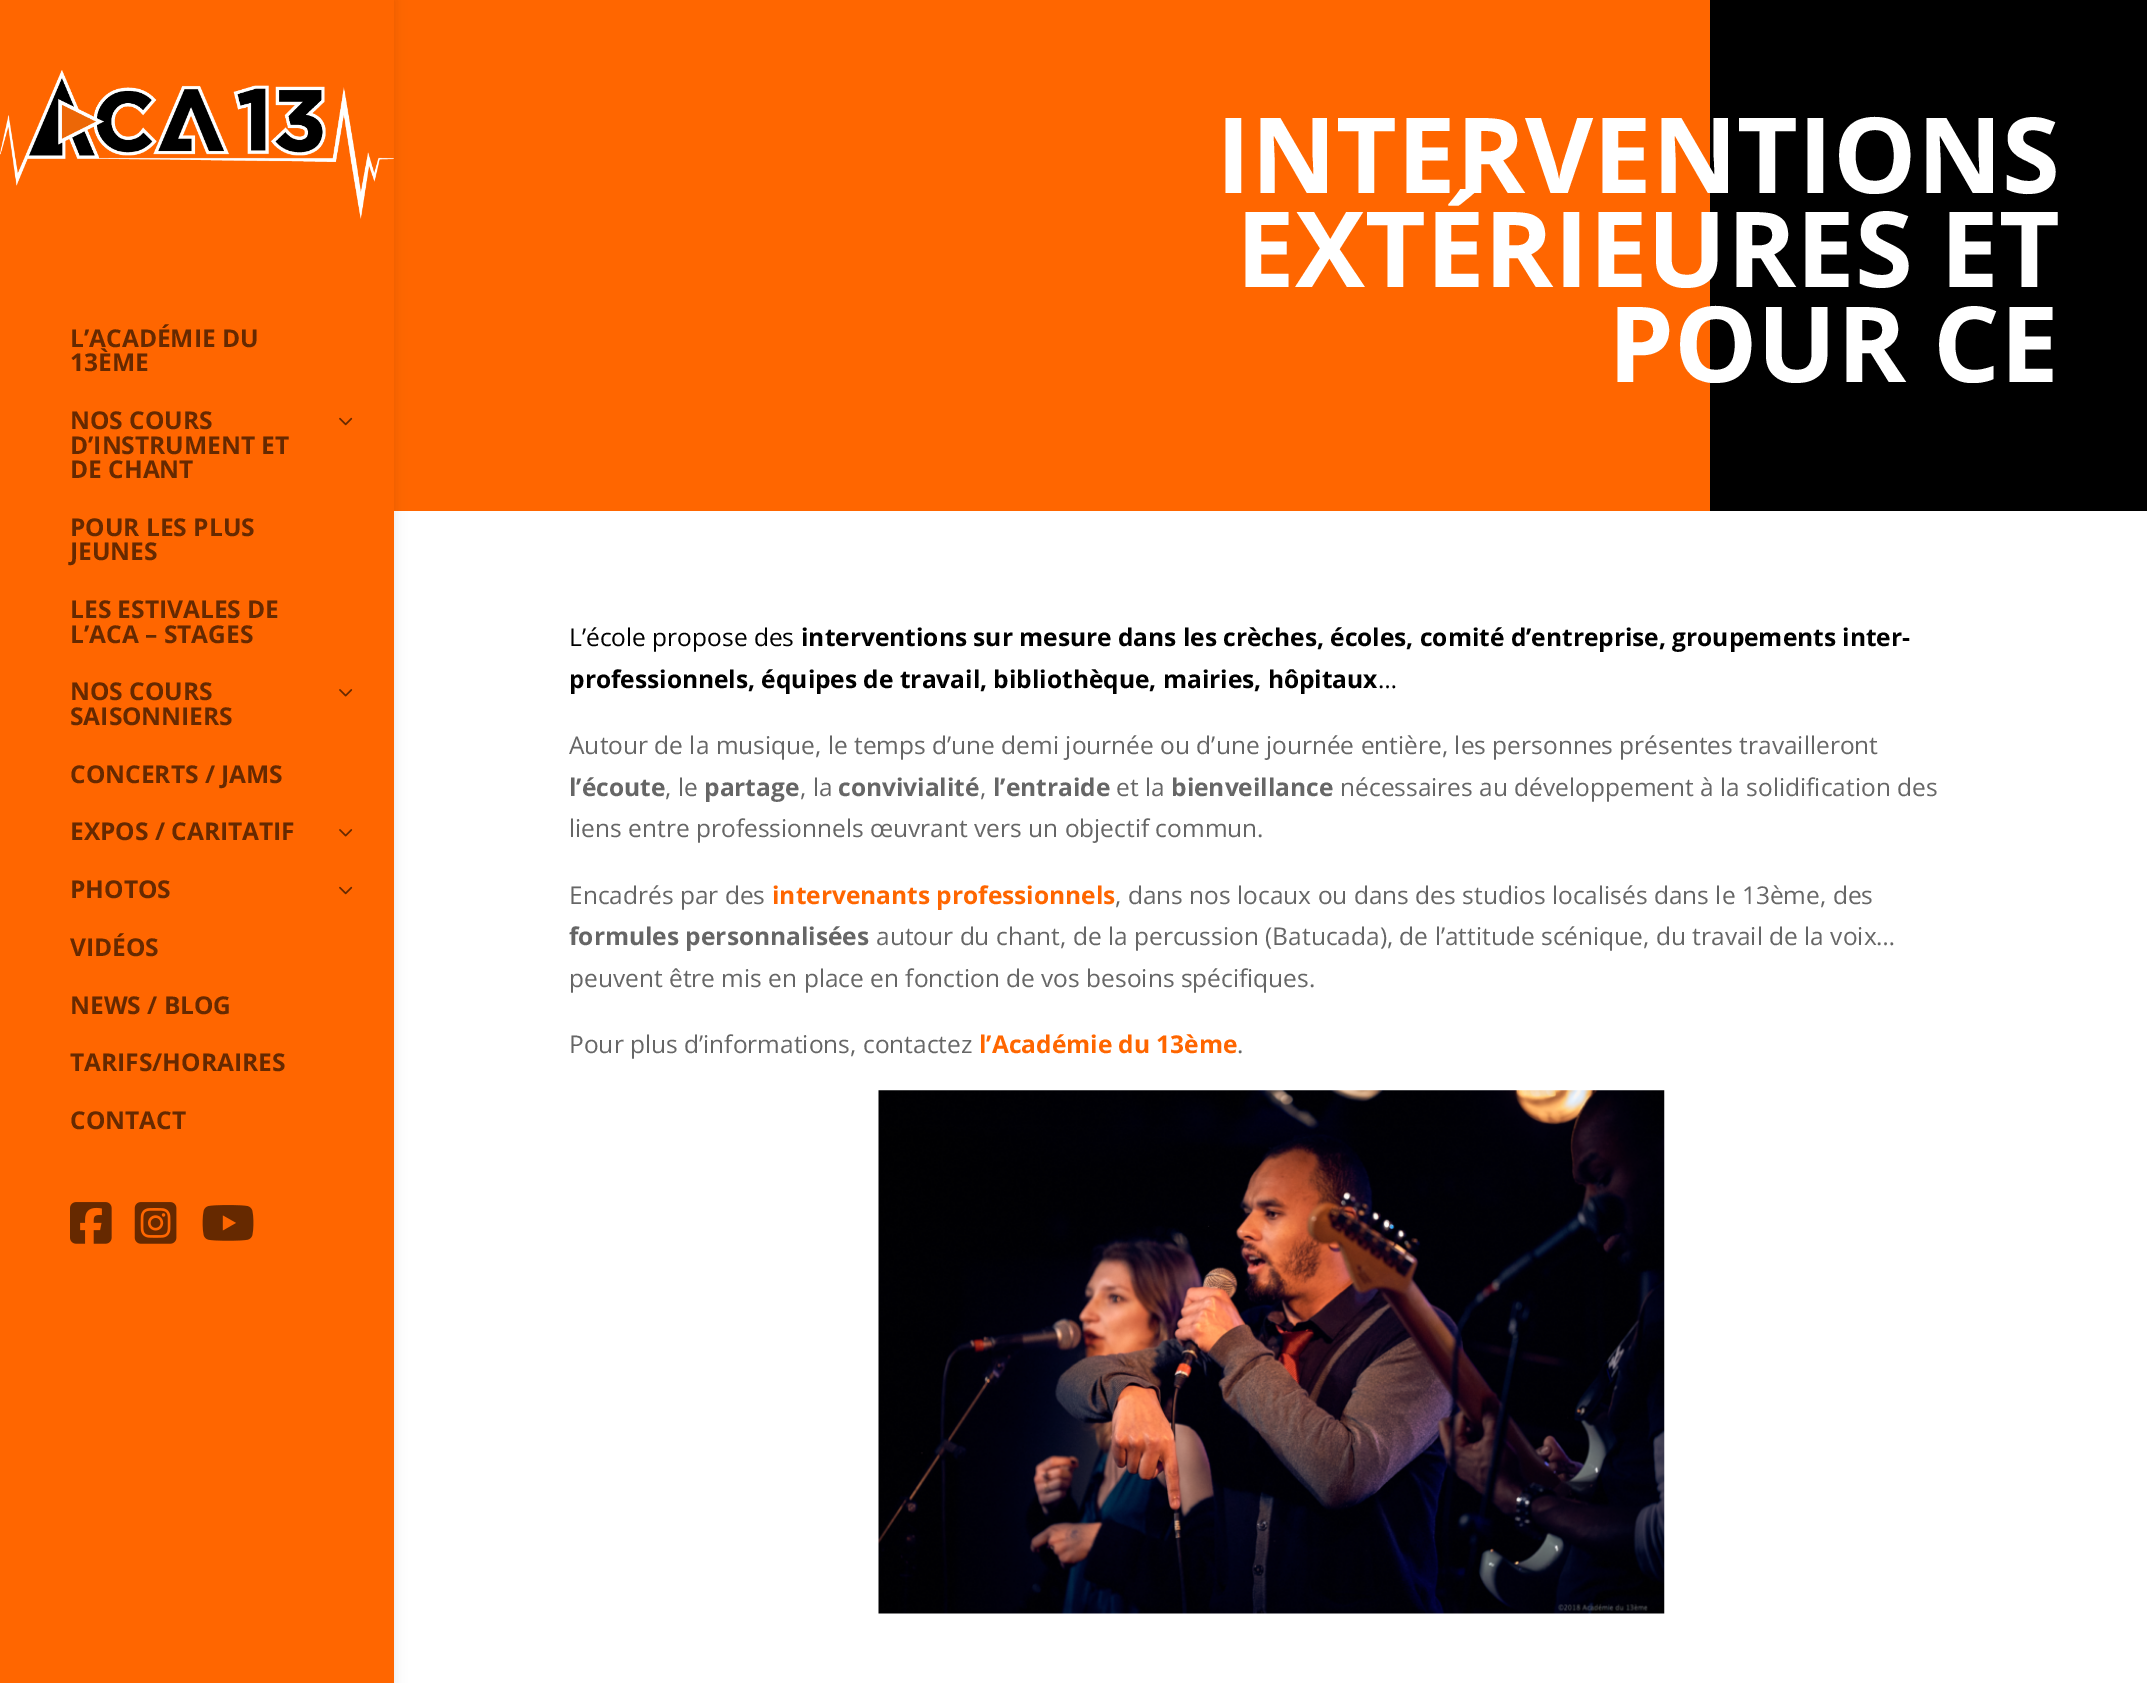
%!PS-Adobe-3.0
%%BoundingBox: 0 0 2147 1683
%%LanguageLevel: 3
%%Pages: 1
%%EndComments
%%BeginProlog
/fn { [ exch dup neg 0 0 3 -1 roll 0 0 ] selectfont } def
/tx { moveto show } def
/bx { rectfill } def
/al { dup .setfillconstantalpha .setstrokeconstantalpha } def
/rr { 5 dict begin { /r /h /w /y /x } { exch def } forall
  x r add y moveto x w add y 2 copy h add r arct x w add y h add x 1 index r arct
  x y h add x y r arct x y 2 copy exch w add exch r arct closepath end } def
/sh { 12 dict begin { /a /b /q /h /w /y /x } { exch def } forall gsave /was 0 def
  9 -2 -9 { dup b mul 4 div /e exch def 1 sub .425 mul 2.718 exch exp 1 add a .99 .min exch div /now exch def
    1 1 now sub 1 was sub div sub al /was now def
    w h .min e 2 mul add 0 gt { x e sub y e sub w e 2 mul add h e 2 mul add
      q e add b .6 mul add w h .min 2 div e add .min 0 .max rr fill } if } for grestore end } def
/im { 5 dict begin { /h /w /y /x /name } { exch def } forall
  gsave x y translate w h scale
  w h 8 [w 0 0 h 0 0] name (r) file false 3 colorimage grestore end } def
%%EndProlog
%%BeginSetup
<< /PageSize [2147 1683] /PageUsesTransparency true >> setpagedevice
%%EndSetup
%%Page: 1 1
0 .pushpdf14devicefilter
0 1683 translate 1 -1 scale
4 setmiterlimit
1 setgray
0 0 2147 1683 bx
1 0.4 0 setrgbcolor
394 0 1316 511 bx
0 setgray
0 0 394 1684 0 6 0.1 sh
1 0.4 0 setrgbcolor
0 0 394 1683 bx
(image0.raw) 0 70 394 149 im
/OpenSans-Bold 24.5 fn
0.4 0.161 0 setrgbcolor
(L’ACADÉMIE DU) 70 347 tx
(13ÈME) 70 371 tx
(NOS COURS) 70 429 tx
(image1.raw) 339 417 14 9 im
(D’INSTRUMENT ET) 70 454 tx
(DE CHANT) 70 478 tx
(POUR LES PLUS) 70 536 tx
(JEUNES) 70 560 tx
(LES ESTIVALES DE) 70 618 tx
(L’ACA – STAGES) 70 643 tx
(NOS COURS) 70 700 tx
(image2.raw) 339 689 14 8 im
(SAISONNIERS) 70 725 tx
(CONCERTS / JAMS) 70 783 tx
(EXPOS / CARITATIF) 70 840 tx
(image2.raw) 339 829 14 8 im
(PHOTOS) 70 898 tx
(image1.raw) 339 886 14 9 im
(VIDÉOS) 70 956 tx
(NEWS / BLOG) 70 1014 tx
(TARIFS/HORAIRES) 70 1071 tx
(CONTACT) 70 1129 tx
(image3.raw) 70 1202 42 42 im
(image4.raw) 134 1202 43 42 im
(image5.raw) 202 1205 52 36 im
0 setgray
1710 0 437 511 bx
/OpenSans-Bold 105 fn
1 setgray
(INTERVENTIONS) 1216 193 tx
(EXTÉRIEURES ET) 1236 287 tx
(POUR CE) 1608 382 tx
/OpenSans-Regular 24.5 fn
0 setgray
(L’école propose des) 569 646 tx
/OpenSans-Bold 24.5 fn
(interventions sur mesure dans les crèches, écoles, comité d’entreprise, groupements inter-) 801 646 tx
(professionnels, équipes de travail, bibliothèque, mairies, hôpitaux) 569 688 tx
/OpenSans-Regular 24.5 fn
(…) 1378 688 tx
0.4 setgray
(Autour de la musique, le temps d’une demi journée ou d’une journée entière, les personnes présentes travailleront) 569 754 tx
/OpenSans-Bold 24.5 fn
(l’écoute) 569 796 tx
/OpenSans-Regular 24.5 fn
(, le) 665 796 tx
/OpenSans-Bold 24.5 fn
(partage) 704 796 tx
/OpenSans-Regular 24.5 fn
(, la) 800 796 tx
/OpenSans-Bold 24.5 fn
(convivialité) 838 796 tx
/OpenSans-Regular 24.5 fn
(,) 980 796 tx
/OpenSans-Bold 24.5 fn
(l’entraide) 993 796 tx
/OpenSans-Regular 24.5 fn
(et la) 1116 796 tx
/OpenSans-Bold 24.5 fn
(bienveillance) 1171 796 tx
/OpenSans-Regular 24.5 fn
(nécessaires au développement à la solidification des) 1340 796 tx
(liens entre professionnels œuvrant vers un objectif commun.) 569 837 tx
(Encadrés par des) 569 904 tx
/OpenSans-Bold 24.5 fn
1 0.4 0 setrgbcolor
(intervenants professionnels) 772 904 tx
/OpenSans-Regular 24.5 fn
0.4 setgray
(, dans nos locaux ou dans des studios localisés dans le 13ème, des) 1115 904 tx
/OpenSans-Bold 24.5 fn
(formules personnalisées) 569 945 tx
/OpenSans-Regular 24.5 fn
(autour du chant, de la percussion \(Batucada\), de l’attitude scénique, du travail de la voix…) 876 945 tx
(peuvent être mis en place en fonction de vos besoins spécifiques.) 569 987 tx
(Pour plus d’informations, contactez) 569 1053 tx
/OpenSans-Bold 24.5 fn
1 0.4 0 setrgbcolor
(l’Académie du 13ème) 979 1053 tx
/OpenSans-Regular 24.5 fn
0.4 setgray
(.) 1237 1053 tx
(image6.raw) 878 1090 787 524 im
.poppdf14devicefilter showpage
%%EOF
